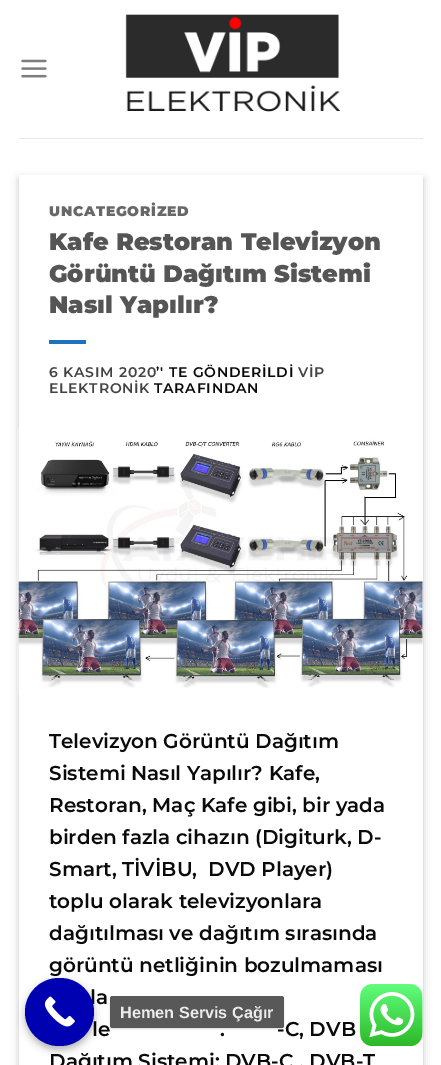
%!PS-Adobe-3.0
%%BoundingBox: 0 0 441 1065
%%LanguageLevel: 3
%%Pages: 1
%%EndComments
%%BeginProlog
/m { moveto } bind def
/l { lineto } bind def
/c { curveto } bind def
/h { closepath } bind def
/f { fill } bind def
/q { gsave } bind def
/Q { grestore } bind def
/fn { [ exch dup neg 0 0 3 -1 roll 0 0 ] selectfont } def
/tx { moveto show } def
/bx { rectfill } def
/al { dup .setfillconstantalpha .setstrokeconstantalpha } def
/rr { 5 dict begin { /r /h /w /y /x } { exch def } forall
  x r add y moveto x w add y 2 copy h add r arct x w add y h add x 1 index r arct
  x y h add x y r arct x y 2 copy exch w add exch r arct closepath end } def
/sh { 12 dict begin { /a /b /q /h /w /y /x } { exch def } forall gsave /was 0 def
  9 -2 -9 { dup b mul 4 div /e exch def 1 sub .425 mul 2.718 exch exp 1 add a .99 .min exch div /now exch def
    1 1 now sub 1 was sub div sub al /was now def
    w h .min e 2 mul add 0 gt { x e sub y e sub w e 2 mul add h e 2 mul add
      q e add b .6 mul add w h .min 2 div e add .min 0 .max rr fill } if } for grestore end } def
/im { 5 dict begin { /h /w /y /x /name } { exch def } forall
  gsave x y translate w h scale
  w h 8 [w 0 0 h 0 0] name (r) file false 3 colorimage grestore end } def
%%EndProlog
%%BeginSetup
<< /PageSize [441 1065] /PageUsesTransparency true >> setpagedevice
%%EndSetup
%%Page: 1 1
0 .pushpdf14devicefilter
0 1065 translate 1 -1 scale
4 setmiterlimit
1 setgray
0 0 441 1065 bx
(image0.raw) 21 59 26 19 im
(image1.raw) 125 14 215 98 im
0.906 setgray
19 138 404 1 bx
0 setgray
19 179 404 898 0 4 0.23 sh
1 setgray
19 175 404 890 bx
/Montserrat-Black 14 fn
0.408 setgray
49 216 m 0.75 0 (UNCATEGORİZED) ashow
/Montserrat-Black 24 fn
0.333 setgray
(Kafe Restoran Televizyon) 49 250 tx
(Görüntü Dağıtım Sistemi) 49 282 tx
(Nasıl Yapılır?) 49 313 tx
0.118 0.451 0.745 setrgbcolor
49 340 37 4 bx
/Montserrat-SemiBold 14 fn
0.259 setgray
49 377 m 0.75 0 (6 KASIM 2020) ashow
0.039 setgray
156 377 m 0.75 0 (’' TE GÖNDERİLDİ) ashow
0.259 setgray
298 377 m 0.75 0 (VİP) ashow
49 393 m 0.75 0 (ELEKTRONİK) ashow
0.039 setgray
154 393 m 0.75 0 (TARAFINDAN) ashow
(image2.raw) 18 428 405 267 im
/Montserrat-SemiBold 20 fn
(Televizyon Görüntü Dağıtım) 49 748 tx
(Sistemi Nasıl Yapılır? Kafe,) 49 780 tx
(Restoran, Maç Kafe gibi, bir yada) 49 812 tx
(birden fazla cihazın \(Digiturk, D-) 49 844 tx
(Smart, TİVİBU,  DVD Player\)) 49 876 tx
(toplu olarak televizyonlara) 49 908 tx
(dağıtılması ve dağıtım sırasında) 49 940 tx
(görüntü netliğinin bozulmaması) 49 972 tx
(la) 90 1004 tx
(le) 92 1036 tx
(.) 220 1036 tx
(-C, DVB) 277 1036 tx
(Dağıtım Sistemi; DVB-C , DVB-T) 49 1068 tx
(image3.raw) 360 984 63 62 im
0 setgray
25 981 69 69 34.5 4 0.3 sh
0 0.008 0.698 setrgbcolor
25 978 69 68 34 rr f
(image4.raw) 44 996 31 31 im
q
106 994 m 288 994 l 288 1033 l 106 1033 l h 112.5 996 m 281.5 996 l 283 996 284 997 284 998.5 c 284 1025.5 l 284 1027 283 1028 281.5 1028 c 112.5 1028 l 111 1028 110 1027 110 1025.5 c 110 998.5 l 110 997 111 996 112.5 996 c h eoclip newpath
0 setgray
110 998 174 31 2.5 1 0.15 sh
Q
0.9 al
0.275 setgray
110 996 174 32 2.5 rr f
/LiberationSans-Bold 16.25 fn
1 al
0.925 setgray
(Hemen Servis Çağır) 120 1018 tx
.poppdf14devicefilter showpage
%%EOF
